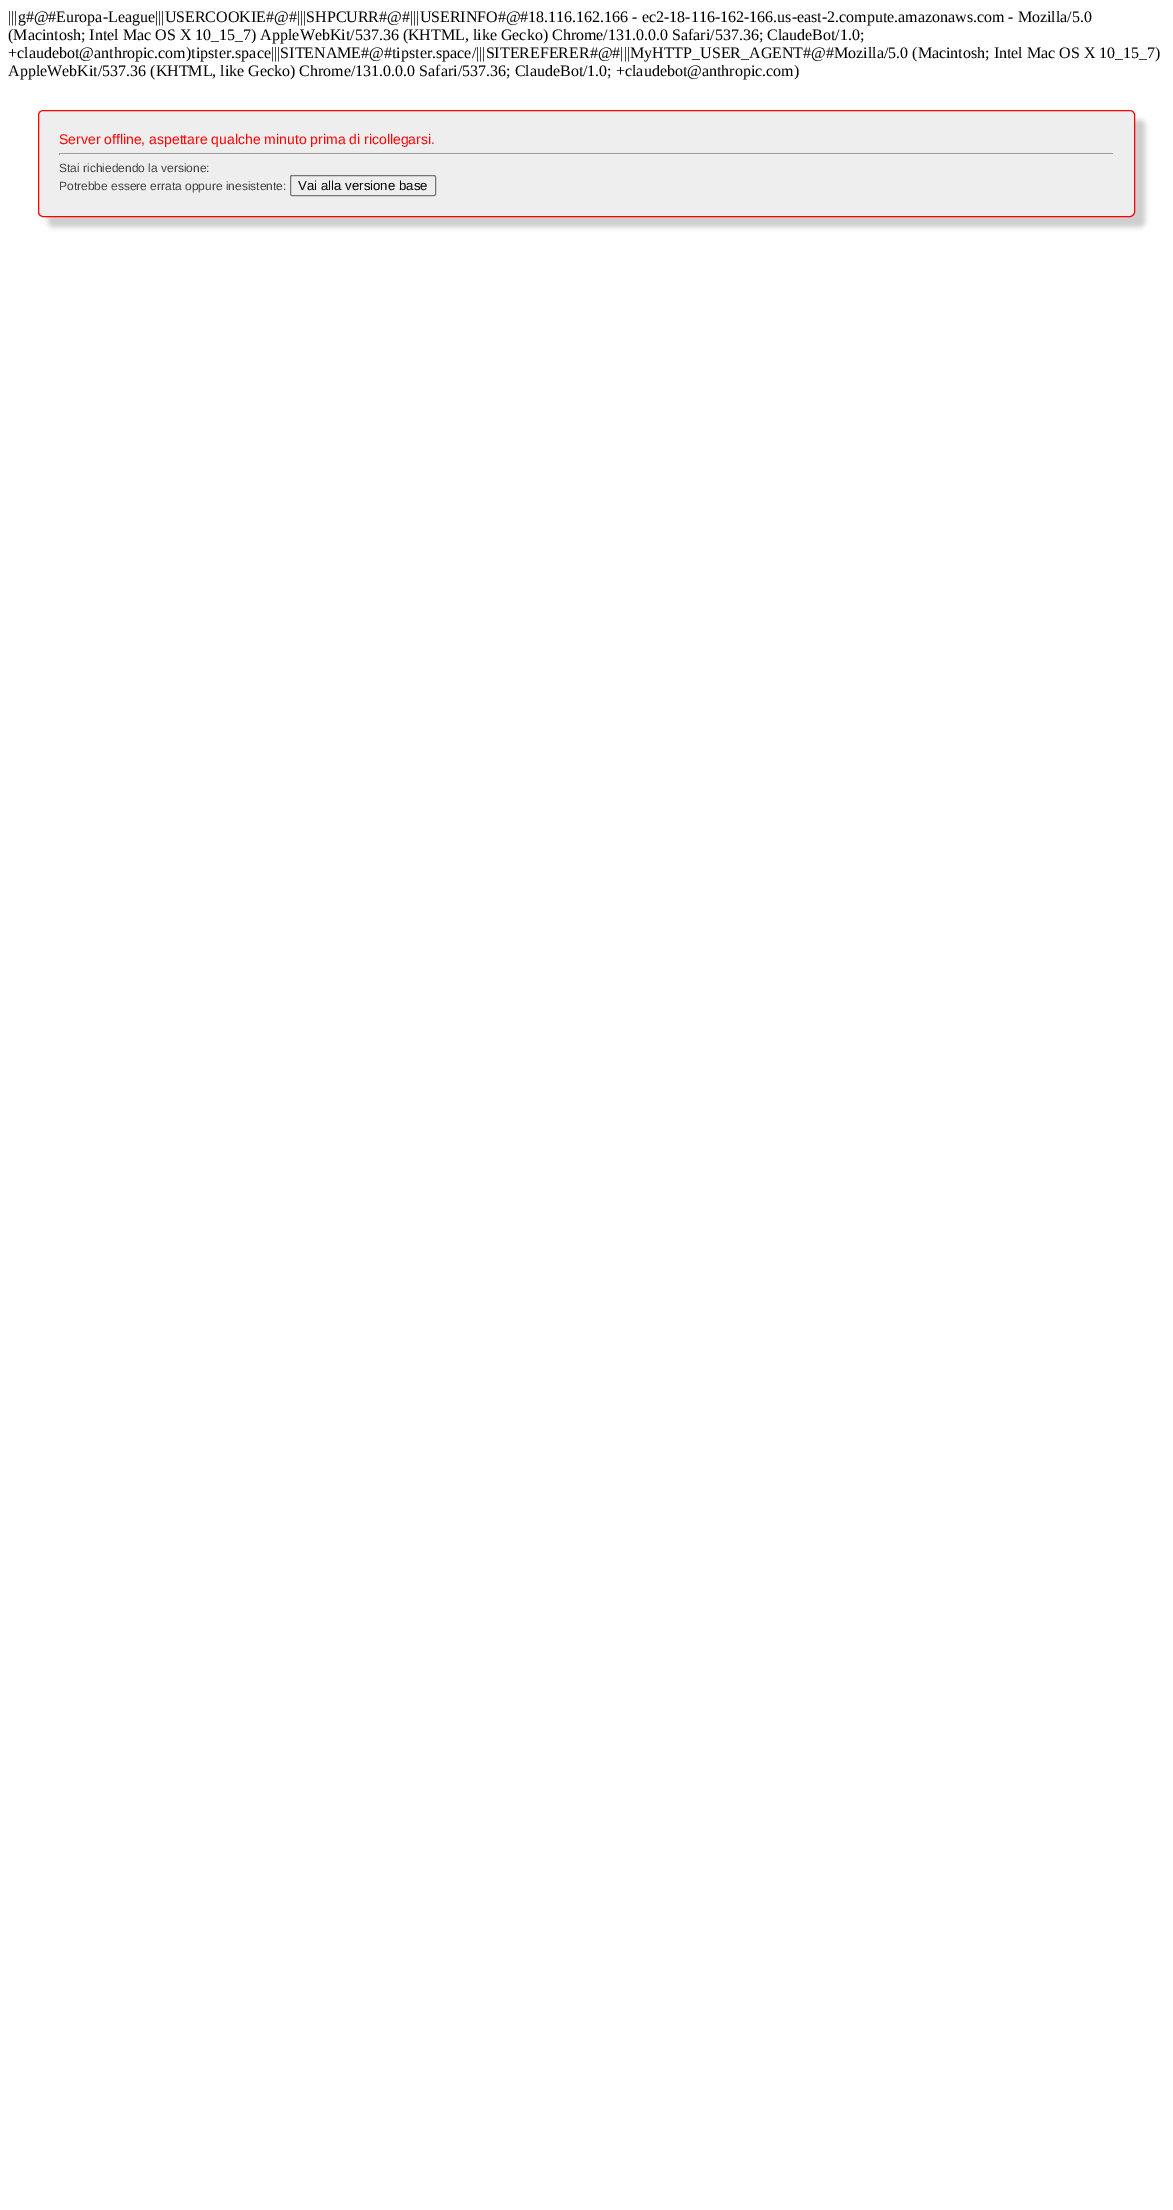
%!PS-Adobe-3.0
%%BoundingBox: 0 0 1173 2210
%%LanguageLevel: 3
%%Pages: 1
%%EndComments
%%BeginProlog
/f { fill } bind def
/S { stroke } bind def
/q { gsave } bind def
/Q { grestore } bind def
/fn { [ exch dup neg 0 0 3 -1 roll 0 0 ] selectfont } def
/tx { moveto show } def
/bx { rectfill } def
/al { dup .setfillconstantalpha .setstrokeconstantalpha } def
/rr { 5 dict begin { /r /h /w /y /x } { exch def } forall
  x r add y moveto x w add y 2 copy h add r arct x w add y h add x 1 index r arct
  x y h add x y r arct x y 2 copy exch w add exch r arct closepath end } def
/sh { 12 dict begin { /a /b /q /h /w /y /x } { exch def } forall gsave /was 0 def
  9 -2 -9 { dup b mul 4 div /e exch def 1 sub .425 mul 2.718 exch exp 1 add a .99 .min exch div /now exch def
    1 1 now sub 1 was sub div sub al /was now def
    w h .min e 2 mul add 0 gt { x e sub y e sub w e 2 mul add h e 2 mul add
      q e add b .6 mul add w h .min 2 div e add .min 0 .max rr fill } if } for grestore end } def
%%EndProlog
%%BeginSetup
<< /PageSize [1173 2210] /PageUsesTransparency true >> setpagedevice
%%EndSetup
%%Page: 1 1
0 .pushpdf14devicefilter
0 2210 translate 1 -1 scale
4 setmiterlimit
1 setgray
0 0 1173 2210 bx
/LiberationSerif-Regular 16 fn
0 setgray
(|||g#@#Europa-League|||USERCOOKIE#@#|||SHPCURR#@#|||USERINFO#@#18.116.162.166 - ec2-18-116-162-166.us-east-2.compute.amazonaws.com - Mozilla/5.0) 8 22 tx
(\(Macintosh; Intel Mac OS X 10_15_7\) AppleWebKit/537.36 \(KHTML, like Gecko\) Chrome/131.0.0.0 Safari/537.36; ClaudeBot/1.0;) 8 40 tx
(+claudebot@anthropic.com\)tipster.space|||SITENAME#@#tipster.space/|||SITEREFERER#@#|||MyHTTP_USER_AGENT#@#Mozilla/5.0 \(Macintosh; Intel Mac OS X 10_15_7\)) 8 58 tx
(AppleWebKit/537.36 \(KHTML, like Gecko\) Chrome/131.0.0.0 Safari/537.36; ClaudeBot/1.0; +claudebot@anthropic.com\)) 8 76 tx
0.8 setgray
48 120 1097 107 5 2.5 1 sh
0.933 setgray
38.5 110.5 1096 106 4.5 rr q f Q
1 0 0 setrgbcolor
S
/LiberationSans-Regular 14 fn
(Server offline, aspettare qualche minuto prima di ricollegarsi.) 59 144 tx
0.624 setgray
59 153 1055 1 bx
0.933 setgray
1113 153 1 2 bx
0.624 setgray
59 153 1 2 bx
/LiberationSans-Regular 12 fn
0.255 0.259 0.263 setrgbcolor
(Stai richiedendo la versione:) 59 172 tx
(Potrebbe essere errata oppure inesistente:) 59 190 tx
0.463 setgray
290.5 175.5 145 20 1.5 rr S
/LiberationSans-Regular 13.25 fn
0 setgray
(Vai alla versione base) 298 190 tx
.poppdf14devicefilter showpage
%%EOF
